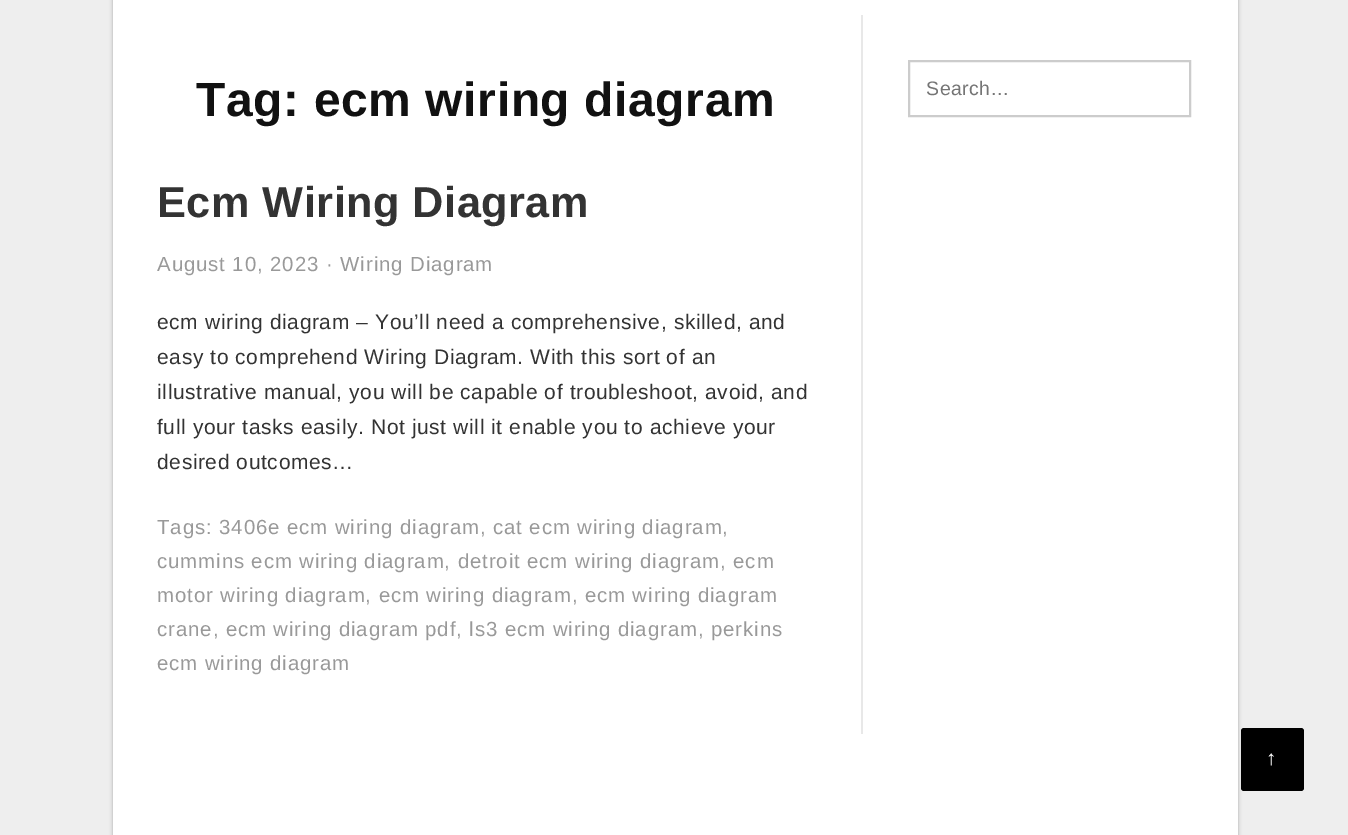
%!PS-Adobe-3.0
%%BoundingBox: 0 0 1348 835
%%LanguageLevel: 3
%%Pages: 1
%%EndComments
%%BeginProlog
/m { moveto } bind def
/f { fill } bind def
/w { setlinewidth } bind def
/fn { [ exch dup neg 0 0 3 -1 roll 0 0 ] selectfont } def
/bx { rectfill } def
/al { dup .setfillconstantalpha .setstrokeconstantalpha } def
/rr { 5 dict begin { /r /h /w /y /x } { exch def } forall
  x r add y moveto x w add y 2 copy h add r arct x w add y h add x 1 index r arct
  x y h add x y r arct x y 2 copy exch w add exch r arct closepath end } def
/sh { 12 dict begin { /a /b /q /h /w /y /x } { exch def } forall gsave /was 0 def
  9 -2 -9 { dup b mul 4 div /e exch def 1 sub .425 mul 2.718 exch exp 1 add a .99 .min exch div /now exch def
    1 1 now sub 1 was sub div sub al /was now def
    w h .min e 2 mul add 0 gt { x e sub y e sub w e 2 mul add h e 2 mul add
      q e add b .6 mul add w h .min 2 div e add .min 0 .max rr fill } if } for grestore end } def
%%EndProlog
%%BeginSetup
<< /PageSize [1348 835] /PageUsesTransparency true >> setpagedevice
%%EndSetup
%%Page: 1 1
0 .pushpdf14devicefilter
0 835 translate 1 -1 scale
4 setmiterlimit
0.933 setgray
0 0 1348 835 bx
0 setgray
113 -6 1125 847 0 2 0.3 sh
1 setgray
113 0 1125 835 bx
0.91 setgray
861 15 2 719 bx
/LiberationSans-Bold 48 fn
0.067 setgray
196 116 m 0.6 0 (Tag: ecm wiring diagram) ashow
/LiberationSans-Bold 43.25 fn
0.2 setgray
157 217 m 0.5 0 (Ecm Wiring Diagram) ashow
/LiberationSans-Regular 20.4 fn
0.6 setgray
157 271 m 0.9 0 (August 10, 2023) ashow
326 271 m 0.9 0 (· Wiring Diagram) ashow
/LiberationSans-Regular 21 fn
0.2 setgray
157 329 m 0.6 0 (ecm wiring diagram – You’ll need a comprehensive, skilled, and) ashow
157 364 m 0.6 0 (easy to comprehend Wiring Diagram. With this sort of an) ashow
157 399 m 0.6 0 (illustrative manual, you will be capable of troubleshoot, avoid, and) ashow
157 434 m 0.6 0 (full your tasks easily. Not just will it enable you to achieve your) ashow
157 469 m 0.6 0 (desired outcomes…) ashow
/LiberationSans-Regular 20.4 fn
0.6 setgray
157 534 m 0.9 0 (Tags: 3406e ecm wiring diagram, cat ecm wiring diagram,) ashow
157 568 m 0.9 0 (cummins ecm wiring diagram, detroit ecm wiring diagram, ecm) ashow
157 602 m 0.9 0 (motor wiring diagram, ecm wiring diagram, ecm wiring diagram) ashow
157 636 m 0.9 0 (crane, ecm wiring diagram pdf, ls3 ecm wiring diagram, perkins) ashow
157 670 m 0.9 0 (ecm wiring diagram) ashow
0.8 setgray
2 w
909 61 281 55 rectstroke
/LiberationSans-Regular 19.5 fn
0.459 setgray
926 95 m 0.5 0 (Search...) ashow
0 setgray
1241 728 63 63 3 rr f
/LiberationSans-Bold 21 fn
1 setgray
1266 765 m 0.6 0 (↑) ashow
.poppdf14devicefilter showpage
%%EOF
